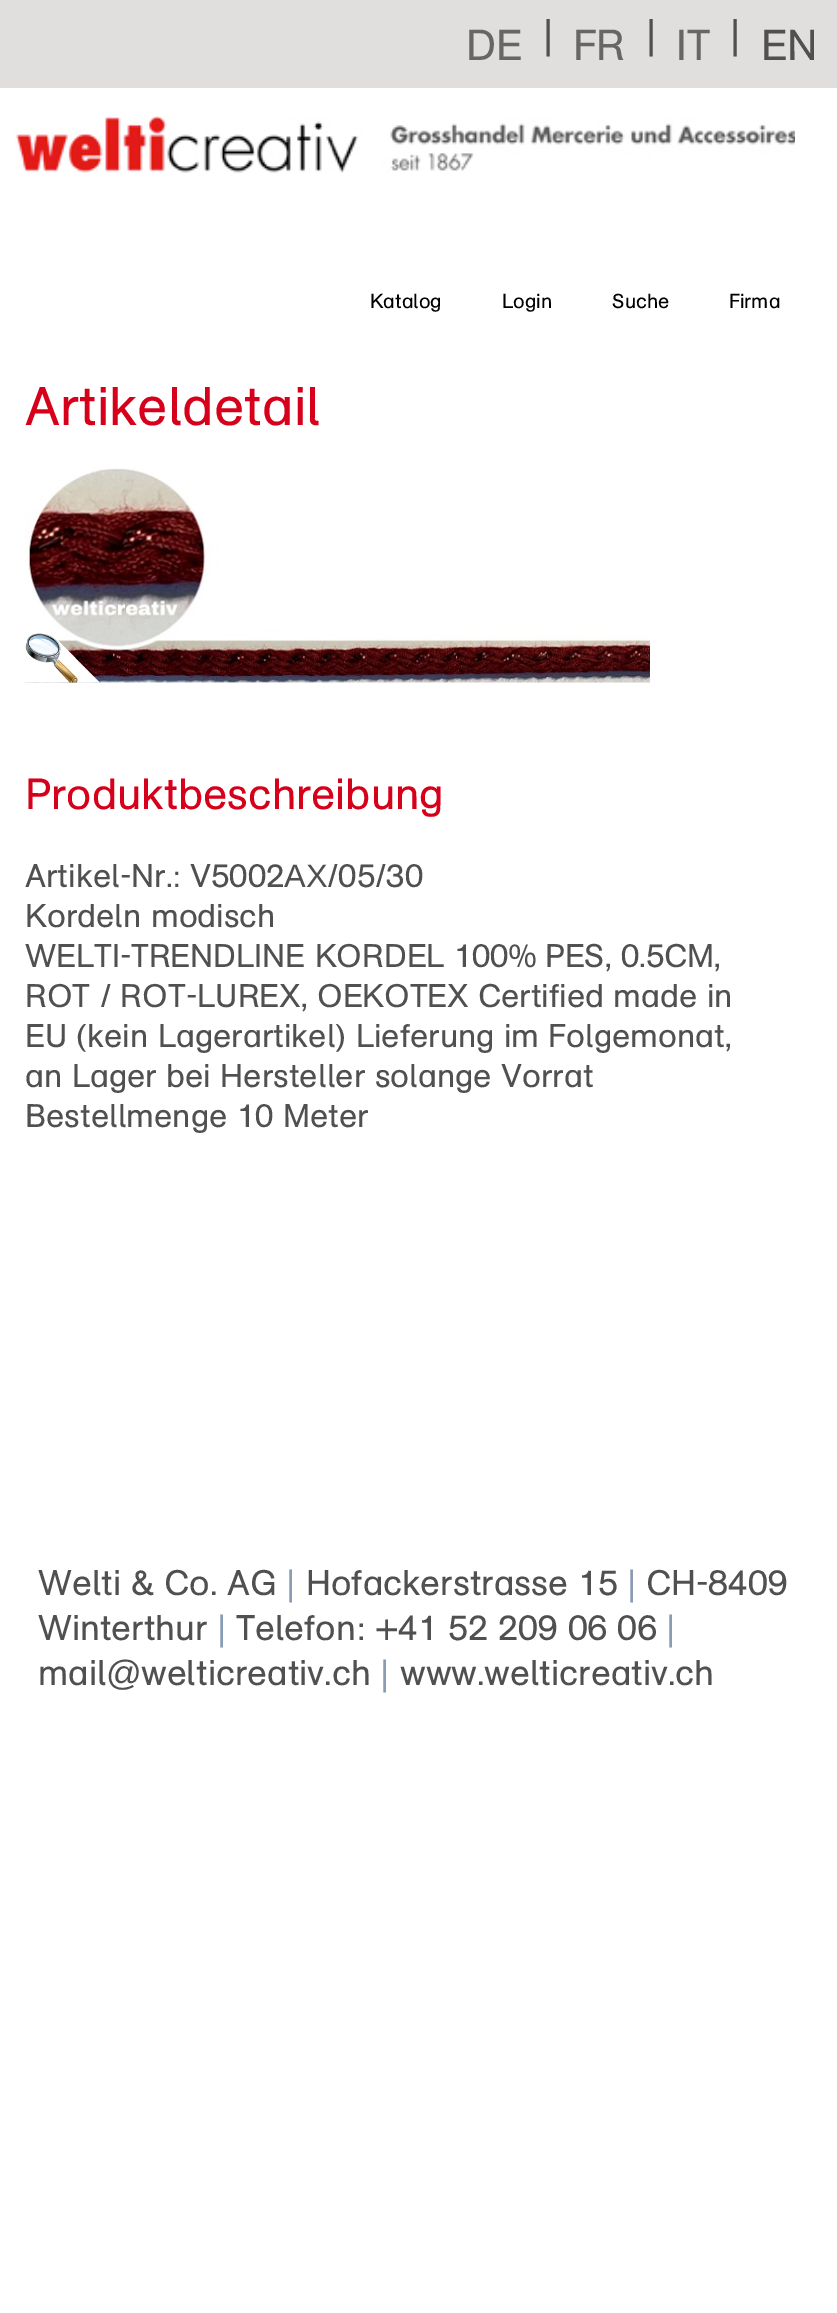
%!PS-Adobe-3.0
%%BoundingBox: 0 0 837 2313
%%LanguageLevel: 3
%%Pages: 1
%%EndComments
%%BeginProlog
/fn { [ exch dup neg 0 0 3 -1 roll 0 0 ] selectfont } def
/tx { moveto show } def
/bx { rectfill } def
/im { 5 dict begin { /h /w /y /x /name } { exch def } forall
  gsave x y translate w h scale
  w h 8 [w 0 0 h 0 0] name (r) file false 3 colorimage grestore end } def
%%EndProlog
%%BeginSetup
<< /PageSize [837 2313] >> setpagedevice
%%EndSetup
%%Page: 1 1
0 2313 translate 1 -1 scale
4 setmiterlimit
1 setgray
0 0 837 2313 bx
0.882 0.875 0.867 setrgbcolor
0 0 837 88 bx
/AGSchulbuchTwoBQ-Regular 43 fn
0.4 setgray
(DE) 466 60 tx
/LiberationSans-Regular 40 fn
0.314 setgray
(|) 543 48 tx
/AGSchulbuchTwoBQ-Regular 43 fn
0.4 setgray
(FR) 573 60 tx
/LiberationSans-Regular 40 fn
0.314 setgray
(|) 646 48 tx
/AGSchulbuchTwoBQ-Regular 43 fn
0.4 setgray
(IT) 676 60 tx
/LiberationSans-Regular 40 fn
0.314 setgray
(|) 730 48 tx
/AGSchulbuchTwoBQ-Regular 43 fn
(EN) 761 60 tx
(image0.raw) 15 116 780 57 im
/AGSchulbuchTwoBQ-Regular 20 fn
0 setgray
(Katalog) 370 308 tx
(Login) 502 308 tx
(Suche) 612 308 tx
(Firma) 729 308 tx
/AGSchulbuchTwoBQ-Regular 54 fn
0.839 0 0.102 setrgbcolor
(Artikeldetail) 25 425 tx
(image1.raw) 25 468 625 215 im
(image2.raw) 25 633 75 50 im
/AGSchulbuchTwoBQ-Regular 43.25 fn
(Produktbeschreibung) 25 809 tx
/AGSchulbuchTwoBQ-Regular 32.5 fn
0.314 setgray
(Artikel-Nr.: V5002) 25 887 tx
/LiberationSans-Regular 32.5 fn
(ΑΧ) 284 887 tx
/AGSchulbuchTwoBQ-Regular 32.5 fn
(/05/30) 327 887 tx
(Kordeln modisch) 25 927 tx
(WELTI-TRENDLINE KORDEL 100% PES, 0.5CM,) 25 967 tx
(ROT / ROT-LUREX, OEKOTEX Certified made in) 25 1007 tx
(EU \(kein Lagerartikel\) Lieferung im Folgemonat,) 25 1047 tx
(an Lager bei Hersteller solange Vorrat) 25 1087 tx
(Bestellmenge 10 Meter) 25 1127 tx
/AGSchulbuchTwoBQ-Regular 35.25 fn
(Welti & Co. AG) 38 1595 tx
/LiberationSans-Regular 35.25 fn
0.541 0.612 0.706 setrgbcolor
(|) 286 1595 tx
/AGSchulbuchTwoBQ-Regular 35.25 fn
0.314 setgray
(Hofackerstrasse 15) 306 1595 tx
/LiberationSans-Regular 35.25 fn
0.541 0.612 0.706 setrgbcolor
(|) 627 1595 tx
/AGSchulbuchTwoBQ-Regular 35.25 fn
0.314 setgray
(CH-8409) 646 1595 tx
(Winterthur) 38 1640 tx
/LiberationSans-Regular 35.25 fn
0.541 0.612 0.706 setrgbcolor
(|) 217 1640 tx
/AGSchulbuchTwoBQ-Regular 35.25 fn
0.314 setgray
(Telefon: +41 52 209 06 06) 236 1640 tx
/LiberationSans-Regular 35.25 fn
0.541 0.612 0.706 setrgbcolor
(|) 666 1640 tx
/AGSchulbuchTwoBQ-Regular 35.25 fn
0.314 setgray
(mail) 38 1685 tx
/LiberationSans-Regular 35.25 fn
(@) 106 1685 tx
/AGSchulbuchTwoBQ-Regular 35.25 fn
(welticreativ.ch) 141 1685 tx
/LiberationSans-Regular 35.25 fn
0.541 0.612 0.706 setrgbcolor
(|) 380 1685 tx
/AGSchulbuchTwoBQ-Regular 35.25 fn
0.314 setgray
(www.welticreativ.ch) 400 1685 tx
showpage
%%EOF
